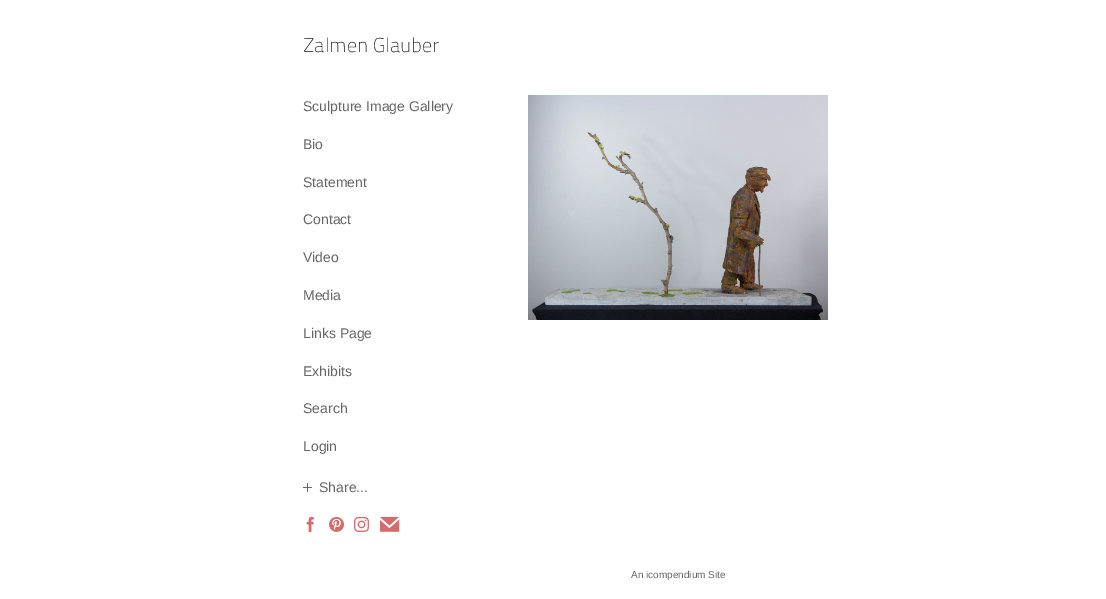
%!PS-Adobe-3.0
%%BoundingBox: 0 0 1106 599
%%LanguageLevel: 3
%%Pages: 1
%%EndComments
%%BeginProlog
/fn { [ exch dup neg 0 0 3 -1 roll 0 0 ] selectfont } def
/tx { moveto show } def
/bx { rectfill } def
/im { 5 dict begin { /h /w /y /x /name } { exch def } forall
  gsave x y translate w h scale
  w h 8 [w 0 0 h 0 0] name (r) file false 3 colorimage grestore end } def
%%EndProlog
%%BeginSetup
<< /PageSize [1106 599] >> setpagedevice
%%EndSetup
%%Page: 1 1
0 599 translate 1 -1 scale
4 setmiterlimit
1 setgray
0 0 1106 599 bx
/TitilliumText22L-Thin 20 fn
0.094 setgray
(Zalmen Glauber) 303 52 tx
/LiberationSans-Regular 14 fn
0.4 setgray
(Sculpture Image Gallery) 303 111 tx
(Bio) 303 149 tx
(Statement) 303 187 tx
(Contact) 303 224 tx
(Video) 303 262 tx
(Media) 303 300 tx
(Links Page) 303 338 tx
(Exhibits) 303 376 tx
(Search) 303 413 tx
(Login) 303 451 tx
307 483 1 9 bx
303 487 9 1 bx
(Share...) 319 492 tx
(image0.raw) 306 516 8 16 im
(image1.raw) 329 516 15 16 im
(image2.raw) 354 516 15 16 im
(image3.raw) 380 516 20 16 im
(image4.raw) 528 95 300 225 im
/LiberationSans-Regular 10 fn
(An icompendium Site) 631 578 tx
showpage
%%EOF
